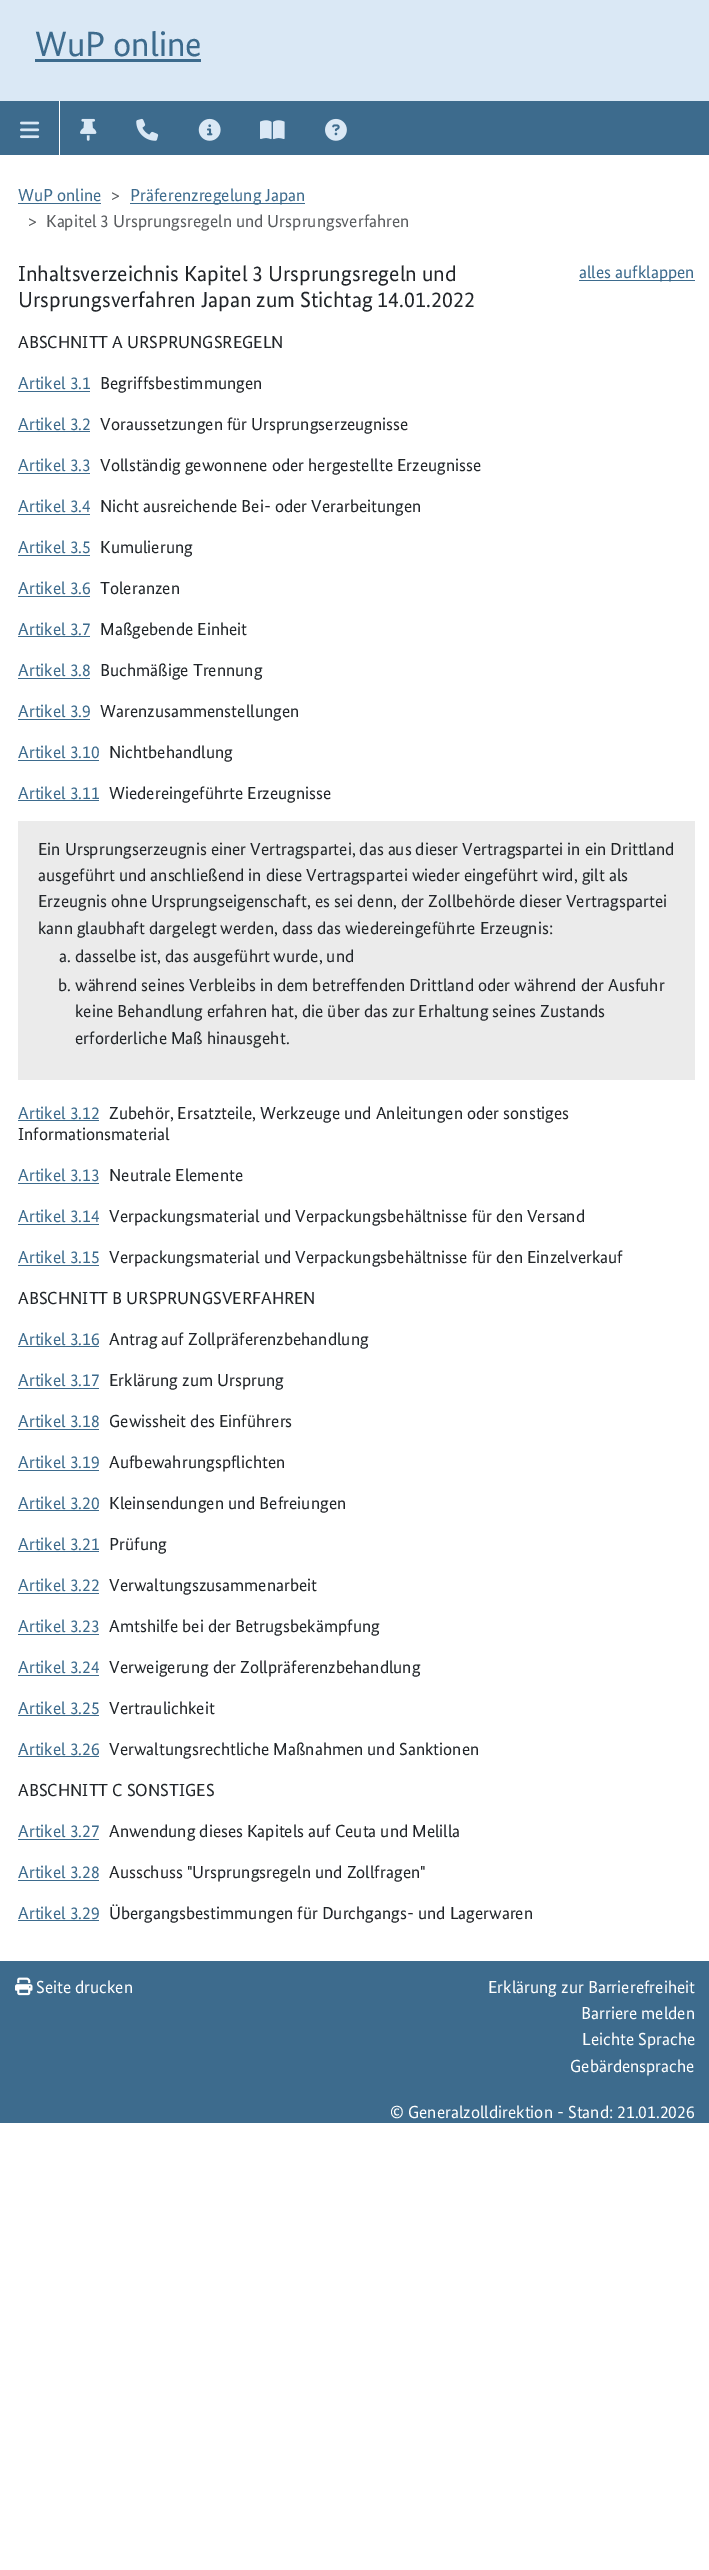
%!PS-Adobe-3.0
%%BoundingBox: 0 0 709 2570
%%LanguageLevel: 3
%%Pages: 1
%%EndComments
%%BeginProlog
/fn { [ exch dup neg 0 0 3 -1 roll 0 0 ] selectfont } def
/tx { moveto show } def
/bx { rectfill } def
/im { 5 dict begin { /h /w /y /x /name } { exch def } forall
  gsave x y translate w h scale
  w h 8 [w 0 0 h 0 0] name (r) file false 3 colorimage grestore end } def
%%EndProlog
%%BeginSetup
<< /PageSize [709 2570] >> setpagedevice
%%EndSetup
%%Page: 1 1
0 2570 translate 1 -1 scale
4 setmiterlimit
1 setgray
0 0 709 2570 bx
0.855 0.91 0.961 setrgbcolor
0 0 709 101 bx
/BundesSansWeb-Regular 35 fn
0.239 0.42 0.553 setrgbcolor
(WuP online) 35 56 tx
35 59 166 3 bx
0 101 709 54 bx
1 setgray
59 101 1 54 bx
(image0.raw) 20 121 20 18 im
(image1.raw) 80 118 17 23 im
(image2.raw) 136 118 23 23 im
(image3.raw) 198 118 23 23 im
(image4.raw) 260 120 25 20 im
(image5.raw) 325 118 22 23 im
/BundesSansWeb-Regular 17.5 fn
0.239 0.42 0.553 setrgbcolor
(WuP online) 18 201 tx
18 203 83 1 bx
0.349 0.361 0.373 setrgbcolor
(>) 111 201 tx
0.239 0.42 0.553 setrgbcolor
130 203 175 1 bx
(Präferenzregelung Japan) 130 201 tx
0.349 0.361 0.373 setrgbcolor
(>) 28 227 tx
(Kapitel 3 Ursprungsregeln und Ursprungsverfahren) 46 227 tx
/BundesSansWeb-Regular 21.9 fn
0.129 0.145 0.161 setrgbcolor
(Inhaltsverzeichnis Kapitel 3 Ursprungsregeln und) 18 281 tx
(Ursprungsverfahren Japan zum Stichtag 14.01.2022) 18 307 tx
0.239 0.42 0.553 setrgbcolor
579 280 116 1 bx
/BundesSansWeb-Regular 17.5 fn
(alles aufklappen) 579 278 tx
0.129 0.145 0.161 setrgbcolor
(ABSCHNITT A URSPRUNGSREGELN) 18 348 tx
0.239 0.42 0.553 setrgbcolor
(Artikel 3.1) 18 389 tx
18 391 72 1 bx
0.129 0.145 0.161 setrgbcolor
(Begriffsbestimmungen) 100 389 tx
0.239 0.42 0.553 setrgbcolor
(Artikel 3.2) 18 430 tx
18 431 72 1 bx
0.129 0.145 0.161 setrgbcolor
(Voraussetzungen für Ursprungserzeugnisse) 100 430 tx
0.239 0.42 0.553 setrgbcolor
(Artikel 3.3) 18 471 tx
18 473 72 1 bx
0.129 0.145 0.161 setrgbcolor
(Vollständig gewonnene oder hergestellte Erzeugnisse) 100 471 tx
0.239 0.42 0.553 setrgbcolor
(Artikel 3.4) 18 512 tx
18 514 72 1 bx
0.129 0.145 0.161 setrgbcolor
(Nicht ausreichende Bei- oder Verarbeitungen) 100 512 tx
0.239 0.42 0.553 setrgbcolor
(Artikel 3.5) 18 553 tx
18 555 72 1 bx
0.129 0.145 0.161 setrgbcolor
(Kumulierung) 100 553 tx
0.239 0.42 0.553 setrgbcolor
(Artikel 3.6) 18 594 tx
18 596 72 1 bx
0.129 0.145 0.161 setrgbcolor
(Toleranzen) 100 594 tx
0.239 0.42 0.553 setrgbcolor
(Artikel 3.7) 18 635 tx
18 636 72 1 bx
0.129 0.145 0.161 setrgbcolor
(Maßgebende Einheit) 100 635 tx
0.239 0.42 0.553 setrgbcolor
(Artikel 3.8) 18 676 tx
18 678 72 1 bx
0.129 0.145 0.161 setrgbcolor
(Buchmäßige Trennung) 100 676 tx
0.239 0.42 0.553 setrgbcolor
(Artikel 3.9) 18 717 tx
18 719 72 1 bx
0.129 0.145 0.161 setrgbcolor
(Warenzusammenstellungen) 100 717 tx
0.239 0.42 0.553 setrgbcolor
(Artikel 3.10) 18 758 tx
18 760 81 1 bx
0.129 0.145 0.161 setrgbcolor
(Nichtbehandlung) 109 758 tx
0.239 0.42 0.553 setrgbcolor
(Artikel 3.11) 18 799 tx
18 800 81 1 bx
0.129 0.145 0.161 setrgbcolor
(Wiedereingeführte Erzeugnisse) 109 799 tx
0.922 setgray
18 821 677 259 bx
0.129 0.145 0.161 setrgbcolor
(Ein Ursprungserzeugnis einer Vertragspartei, das aus dieser Vertragspartei in ein Drittland) 38 855 tx
(ausgeführt und anschließend in diese Vertragspartei wieder eingeführt wird, gilt als) 38 881 tx
(Erzeugnis ohne Ursprungseigenschaft, es sei denn, der Zollbehörde dieser Vertragspartei) 38 907 tx
(kann glaubhaft dargelegt werden, dass das wiedereingeführte Erzeugnis:) 38 934 tx
(a. dasselbe ist, das ausgeführt wurde, und) 59 962 tx
(b. während seines Verbleibs in dem betreffenden Drittland oder während der Ausfuhr) 58 991 tx
(keine Behandlung erfahren hat, die über das zur Erhaltung seines Zustands) 75 1017 tx
(erforderliche Maß hinausgeht.) 75 1044 tx
0.239 0.42 0.553 setrgbcolor
(Artikel 3.12) 18 1119 tx
18 1120 81 1 bx
0.129 0.145 0.161 setrgbcolor
(Zubehör, Ersatzteile, Werkzeuge und Anleitungen oder sonstiges) 109 1119 tx
(Informationsmaterial) 18 1140 tx
0.239 0.42 0.553 setrgbcolor
(Artikel 3.13) 18 1181 tx
18 1183 81 1 bx
0.129 0.145 0.161 setrgbcolor
(Neutrale Elemente) 109 1181 tx
0.239 0.42 0.553 setrgbcolor
(Artikel 3.14) 18 1222 tx
18 1224 81 1 bx
0.129 0.145 0.161 setrgbcolor
(Verpackungsmaterial und Verpackungsbehältnisse für den Versand) 109 1222 tx
0.239 0.42 0.553 setrgbcolor
(Artikel 3.15) 18 1263 tx
18 1265 81 1 bx
0.129 0.145 0.161 setrgbcolor
(Verpackungsmaterial und Verpackungsbehältnisse für den Einzelverkauf) 109 1263 tx
(ABSCHNITT B URSPRUNGSVERFAHREN) 18 1304 tx
0.239 0.42 0.553 setrgbcolor
(Artikel 3.16) 18 1345 tx
18 1346 81 1 bx
0.129 0.145 0.161 setrgbcolor
(Antrag auf Zollpräferenzbehandlung) 109 1345 tx
0.239 0.42 0.553 setrgbcolor
(Artikel 3.17) 18 1386 tx
18 1388 81 1 bx
0.129 0.145 0.161 setrgbcolor
(Erklärung zum Ursprung) 109 1386 tx
0.239 0.42 0.553 setrgbcolor
(Artikel 3.18) 18 1427 tx
18 1429 81 1 bx
0.129 0.145 0.161 setrgbcolor
(Gewissheit des Einführers) 109 1427 tx
0.239 0.42 0.553 setrgbcolor
(Artikel 3.19) 18 1468 tx
18 1470 81 1 bx
0.129 0.145 0.161 setrgbcolor
(Aufbewahrungspflichten) 109 1468 tx
0.239 0.42 0.553 setrgbcolor
(Artikel 3.20) 18 1509 tx
18 1510 81 1 bx
0.129 0.145 0.161 setrgbcolor
(Kleinsendungen und Befreiungen) 109 1509 tx
0.239 0.42 0.553 setrgbcolor
(Artikel 3.21) 18 1550 tx
18 1551 81 1 bx
0.129 0.145 0.161 setrgbcolor
(Prüfung) 109 1550 tx
0.239 0.42 0.553 setrgbcolor
(Artikel 3.22) 18 1591 tx
18 1593 81 1 bx
0.129 0.145 0.161 setrgbcolor
(Verwaltungszusammenarbeit) 109 1591 tx
0.239 0.42 0.553 setrgbcolor
(Artikel 3.23) 18 1632 tx
18 1634 81 1 bx
0.129 0.145 0.161 setrgbcolor
(Amtshilfe bei der Betrugsbekämpfung) 109 1632 tx
0.239 0.42 0.553 setrgbcolor
(Artikel 3.24) 18 1673 tx
18 1675 81 1 bx
0.129 0.145 0.161 setrgbcolor
(Verweigerung der Zollpräferenzbehandlung) 109 1673 tx
0.239 0.42 0.553 setrgbcolor
(Artikel 3.25) 18 1714 tx
18 1715 81 1 bx
0.129 0.145 0.161 setrgbcolor
(Vertraulichkeit) 109 1714 tx
0.239 0.42 0.553 setrgbcolor
(Artikel 3.26) 18 1755 tx
18 1756 81 1 bx
0.129 0.145 0.161 setrgbcolor
(Verwaltungsrechtliche Maßnahmen und Sanktionen) 109 1755 tx
(ABSCHNITT C SONSTIGES) 18 1796 tx
0.239 0.42 0.553 setrgbcolor
(Artikel 3.27) 18 1837 tx
18 1839 81 1 bx
0.129 0.145 0.161 setrgbcolor
(Anwendung dieses Kapitels auf Ceuta und Melilla) 109 1837 tx
0.239 0.42 0.553 setrgbcolor
(Artikel 3.28) 18 1878 tx
18 1880 81 1 bx
0.129 0.145 0.161 setrgbcolor
(Ausschuss "Ursprungsregeln und Zollfragen") 109 1878 tx
0.239 0.42 0.553 setrgbcolor
(Artikel 3.29) 18 1919 tx
18 1920 81 1 bx
0.129 0.145 0.161 setrgbcolor
(Übergangsbestimmungen für Durchgangs- und Lagerwaren) 109 1919 tx
0.239 0.42 0.553 setrgbcolor
0 1961 709 162 bx
(image6.raw) 15 1977 18 19 im
1 setgray
(Seite drucken) 36 1993 tx
(Erklärung zur Barrierefreiheit) 488 1993 tx
(Barriere melden) 581 2019 tx
(Leichte Sprache) 582 2045 tx
(Gebärdensprache) 570 2072 tx
(© Generalzolldirektion - Stand: 21.01.2026) 390 2118 tx
showpage
%%EOF
